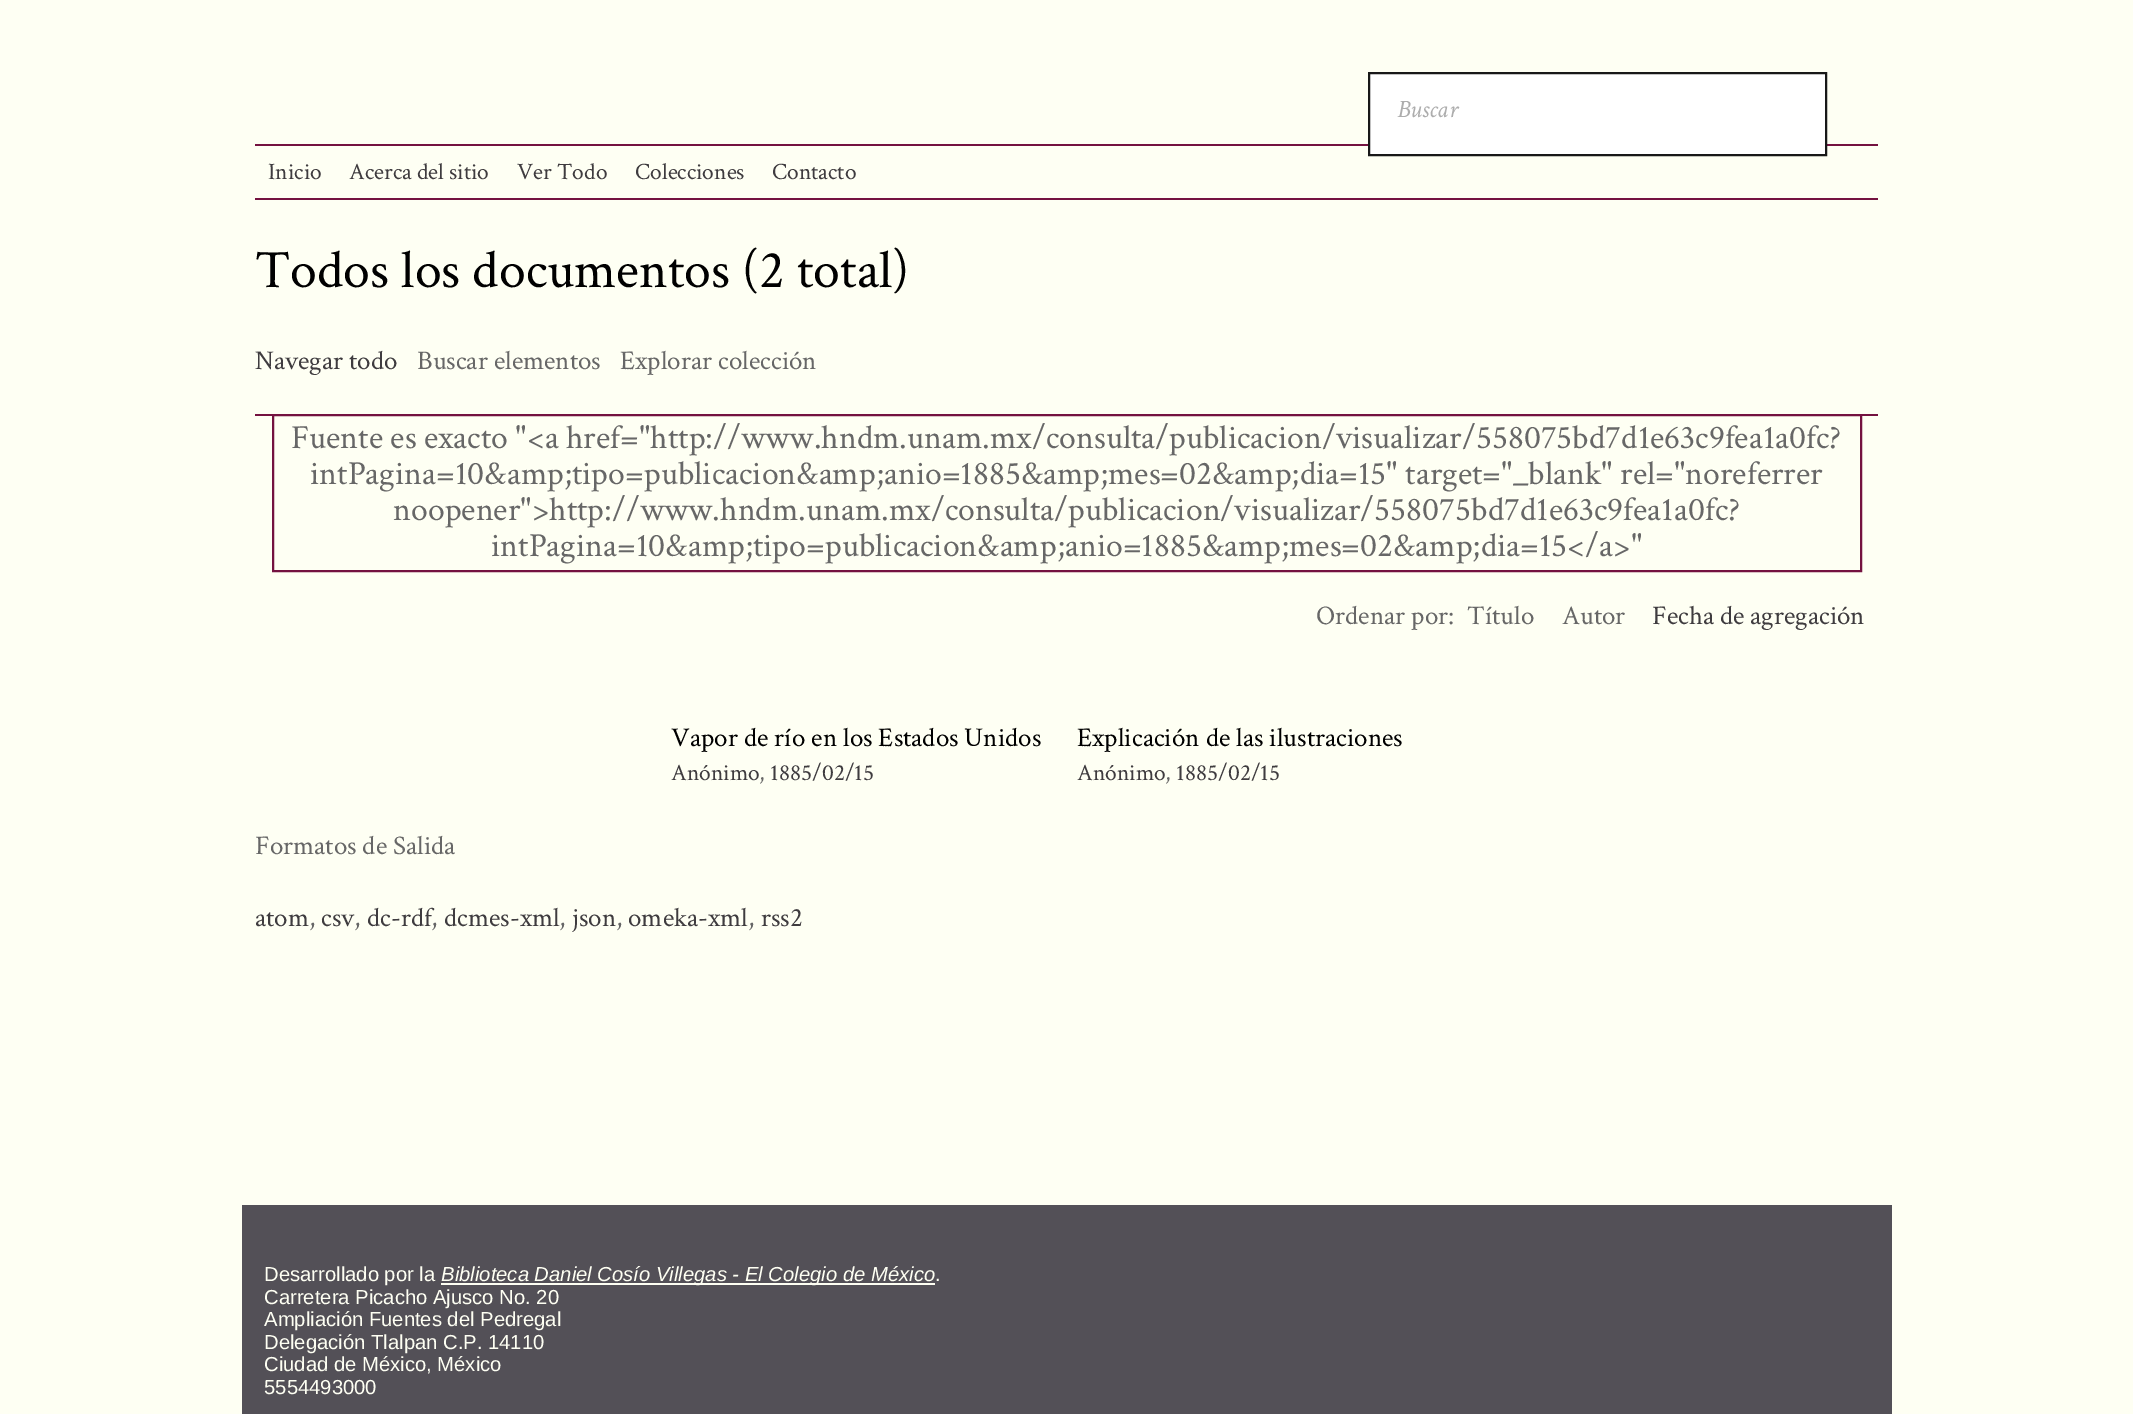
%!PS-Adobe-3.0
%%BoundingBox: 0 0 2133 1414
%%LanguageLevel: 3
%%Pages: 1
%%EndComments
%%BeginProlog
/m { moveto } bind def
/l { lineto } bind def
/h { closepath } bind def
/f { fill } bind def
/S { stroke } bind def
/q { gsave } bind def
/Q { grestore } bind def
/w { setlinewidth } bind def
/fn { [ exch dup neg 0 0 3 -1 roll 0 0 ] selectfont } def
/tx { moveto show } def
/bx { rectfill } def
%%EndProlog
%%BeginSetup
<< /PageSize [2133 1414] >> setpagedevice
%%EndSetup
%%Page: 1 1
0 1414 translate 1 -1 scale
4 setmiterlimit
0.996 1 0.953 setrgbcolor
0 0 2133 1414 bx
0.455 0.071 0.251 setrgbcolor
255 144 1623 2 bx
1 setgray
1369 73 m 1826 73 l 1826 155 l 1369 155 l h q f Q
0.094 setgray
2 w
S
/CrimsonText-Italic 25 fn
0.678 setgray
(Buscar) 1397 117 tx
0.455 0.071 0.251 setrgbcolor
255 198 1623 2 bx
/CrimsonText-Regular 23.5 fn
0.247 0.235 0.247 setrgbcolor
(Inicio) 268 179 tx
(Acerca del sitio) 349 179 tx
(Ver Todo) 517 179 tx
(Colecciones) 635 179 tx
(Contacto) 772 179 tx
/CrimsonText-Regular 54 fn
0 setgray
(Todos los documentos \(2 total\)) 255 287 tx
0.455 0.071 0.251 setrgbcolor
255 414 1623 2 bx
/CrimsonText-Regular 27 fn
0.247 0.235 0.247 setrgbcolor
(Navegar todo) 255 369 tx
0.404 setgray
(Buscar elementos) 417 369 tx
(Explorar colección) 620 369 tx
0.455 0.071 0.251 setrgbcolor
273 415 1588 156 rectstroke
/CrimsonText-Regular 33.75 fn
0.404 setgray
(Fuente es exacto "<a href="http://www.hndm.unam.mx/consulta/publicacion/visualizar/558075bd7d1e63c9fea1a0fc?) 291 448 tx
(intPagina=10&amp;tipo=publicacion&amp;anio=1885&amp;mes=02&amp;dia=15" target="_blank" rel="noreferrer) 310 484 tx
(noopener">http://www.hndm.unam.mx/consulta/publicacion/visualizar/558075bd7d1e63c9fea1a0fc?) 393 520 tx
(intPagina=10&amp;tipo=publicacion&amp;anio=1885&amp;mes=02&amp;dia=15</a>") 491 556 tx
/CrimsonText-Regular 27 fn
(Ordenar por:) 1316 624 tx
(Título) 1467 624 tx
(Autor) 1562 624 tx
0.247 0.235 0.247 setrgbcolor
(Fecha de agregación) 1652 624 tx
0 setgray
(Vapor de río en los Estados Unidos) 671 746 tx
/CrimsonText-Regular 23.5 fn
0.247 0.235 0.247 setrgbcolor
(Anónimo) 671 780 tx
0.404 setgray
(,) 759 780 tx
0.247 0.235 0.247 setrgbcolor
(1885/02/15) 770 780 tx
/CrimsonText-Regular 27 fn
0 setgray
(Explicación de las ilustraciones) 1077 746 tx
/CrimsonText-Regular 23.5 fn
0.247 0.235 0.247 setrgbcolor
(Anónimo) 1077 780 tx
0.404 setgray
(,) 1165 780 tx
0.247 0.235 0.247 setrgbcolor
(1885/02/15) 1176 780 tx
/CrimsonText-Regular 27 fn
0.404 setgray
(Formatos de Salida) 255 854 tx
0.247 0.235 0.247 setrgbcolor
(atom) 255 926 tx
0.404 setgray
(,) 309 926 tx
0.247 0.235 0.247 setrgbcolor
(csv) 321 926 tx
0.404 setgray
(,) 354 926 tx
0.247 0.235 0.247 setrgbcolor
(dc-rdf) 367 926 tx
0.404 setgray
(,) 431 926 tx
0.247 0.235 0.247 setrgbcolor
(dcmes-xml) 444 926 tx
0.404 setgray
(,) 559 926 tx
0.247 0.235 0.247 setrgbcolor
(json) 572 926 tx
0.404 setgray
(,) 616 926 tx
0.247 0.235 0.247 setrgbcolor
(omeka-xml) 628 926 tx
0.404 setgray
(,) 748 926 tx
0.247 0.235 0.247 setrgbcolor
(rss2) 761 926 tx
0.325 0.314 0.341 setrgbcolor
242 1205 1650 209 bx
/LiberationSans-Regular 20.25 fn
0.996 1 0.953 setrgbcolor
(Desarrollado por la) 264 1281 tx
441 1283 494 2 bx
/LiberationSans-Italic 20.25 fn
(Biblioteca Daniel Cosío Villegas - El Colegio de México) 441 1281 tx
/LiberationSans-Regular 20.25 fn
(.) 935 1281 tx
(Carretera Picacho Ajusco No. 20) 264 1304 tx
(Ampliación Fuentes del Pedregal) 264 1326 tx
(Delegación Tlalpan C.P. 14110) 264 1349 tx
(Ciudad de México, México) 264 1371 tx
(5554493000) 264 1394 tx
showpage
%%EOF
